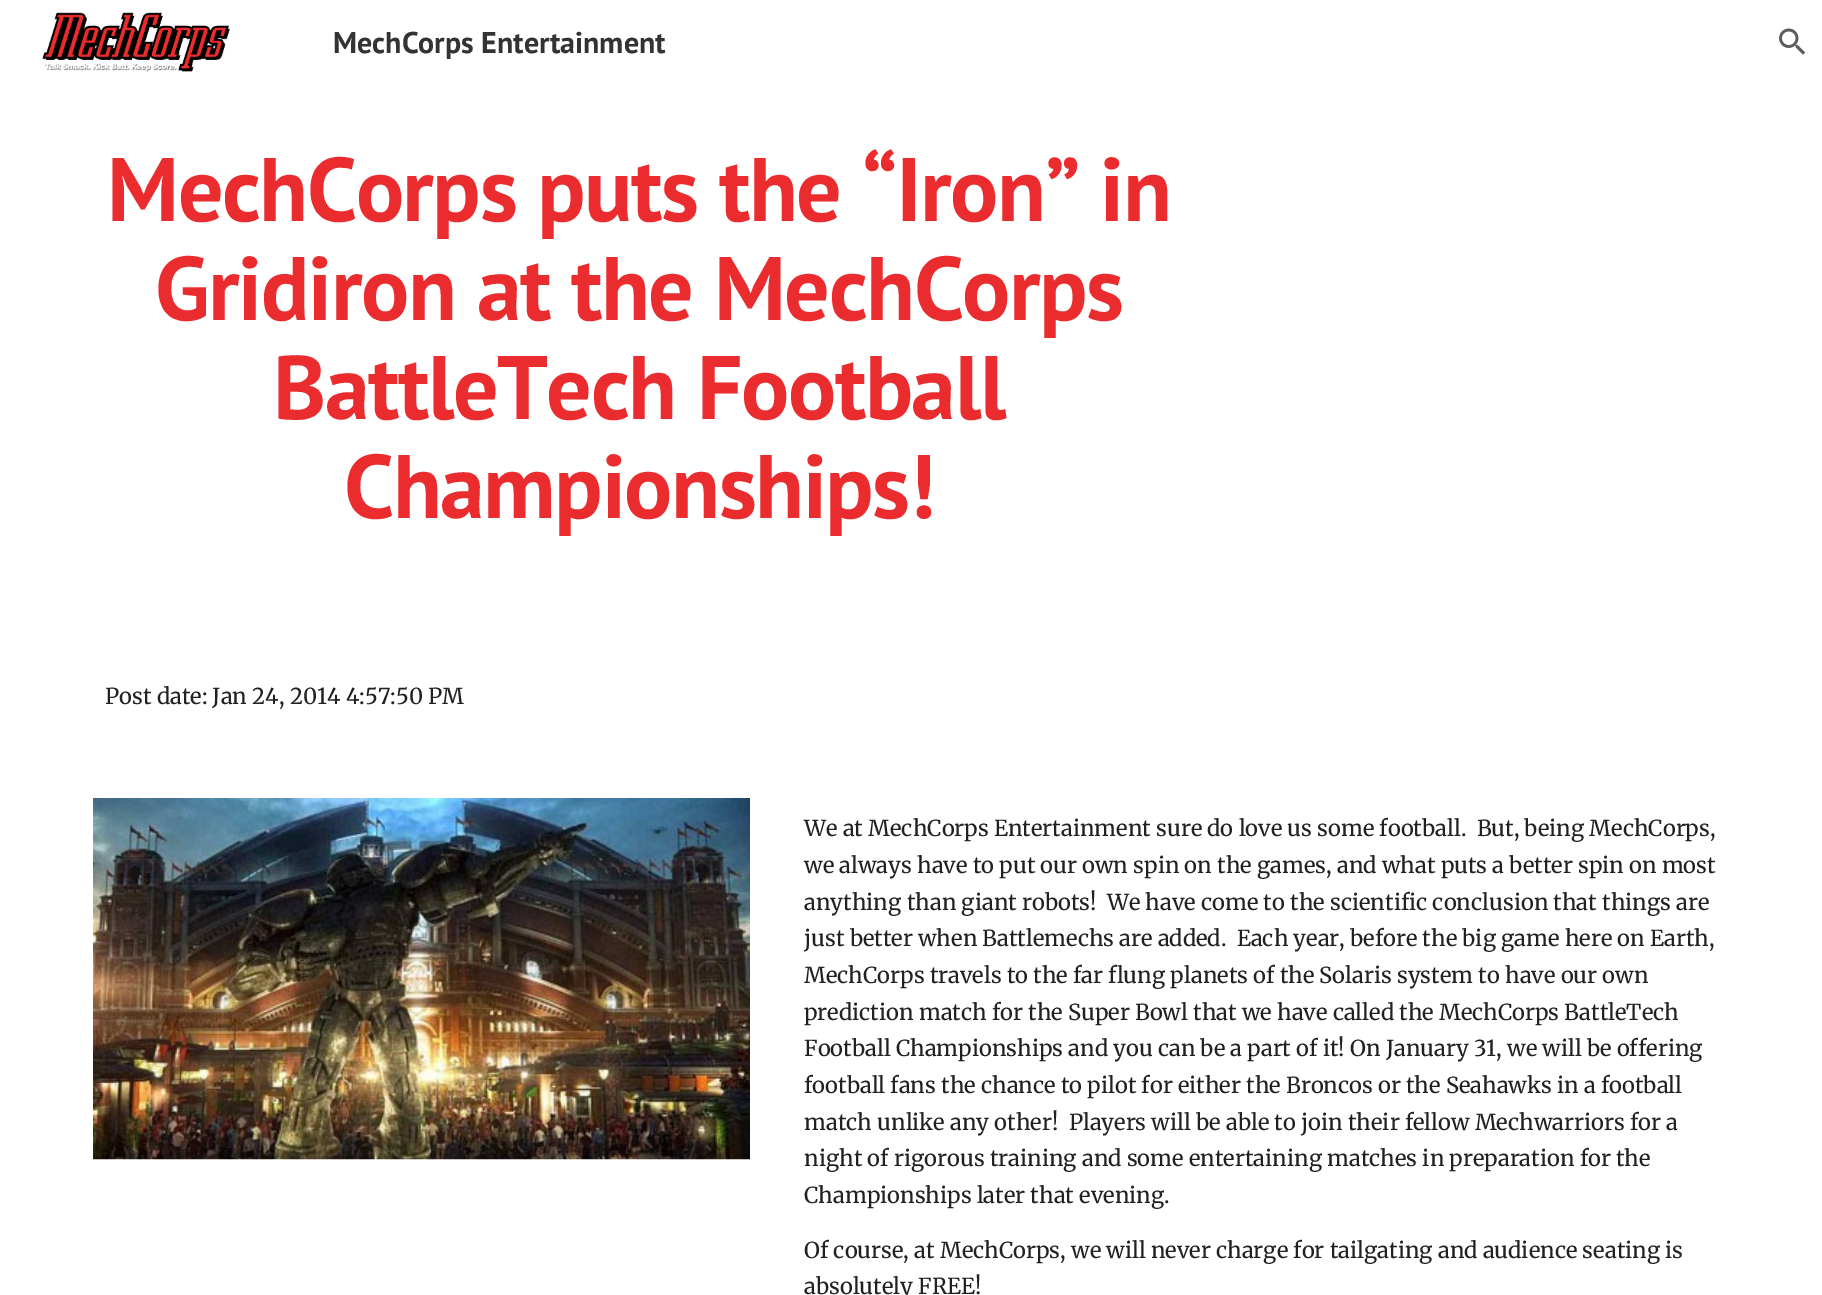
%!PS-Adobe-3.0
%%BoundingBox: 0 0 1822 1295
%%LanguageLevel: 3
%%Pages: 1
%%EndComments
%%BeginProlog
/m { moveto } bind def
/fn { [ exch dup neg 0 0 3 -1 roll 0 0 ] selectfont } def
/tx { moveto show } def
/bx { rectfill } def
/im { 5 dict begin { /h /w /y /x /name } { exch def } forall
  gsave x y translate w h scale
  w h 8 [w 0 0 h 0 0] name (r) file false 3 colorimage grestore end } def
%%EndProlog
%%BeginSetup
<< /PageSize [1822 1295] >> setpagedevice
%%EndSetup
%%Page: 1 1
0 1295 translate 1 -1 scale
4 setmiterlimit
1 setgray
0 0 1822 1295 bx
(image0.raw) 42 12 188 60 im
/PTSans-Bold 30 fn
0.2 setgray
(MechCorps Entertainment) 333 53 tx
(image1.raw) 1779 28 27 27 im
/PTSans-Bold 90 fn
0.918 0.173 0.18 setrgbcolor
107 221 m -1.5 0 (MechCorps puts the “Iron” in) ashow
155 320 m -1.5 0 (Gridiron at the MechCorps) ashow
273 419 m -1.5 0 (BattleTech Football) ashow
344 518 m -1.5 0 (Championships!) ashow
/Merriweather-Regular 22 fn
0.129 setgray
(Post date: Jan 24, 2014 4:57:50 PM) 105 704 tx
(image2.raw) 93 798 657 362 im
(We at MechCorps Entertainment sure do love us some football.  But, being MechCorps,) 804 836 tx
(we always have to put our own spin on the games, and what puts a better spin on most) 804 873 tx
(anything than giant robots!  We have come to the scientific conclusion that things are) 804 910 tx
(just better when Battlemechs are added.  Each year, before the big game here on Earth,) 804 946 tx
(MechCorps travels to the far flung planets of the Solaris system to have our own) 804 983 tx
(prediction match for the Super Bowl that we have called the MechCorps BattleTech) 804 1020 tx
(Football Championships and you can be a part of it! On January 31, we will be offering) 804 1056 tx
(football fans the chance to pilot for either the Broncos or the Seahawks in a football) 804 1093 tx
(match unlike any other!  Players will be able to join their fellow Mechwarriors for a) 804 1130 tx
(night of rigorous training and some entertaining matches in preparation for the) 804 1166 tx
(Championships later that evening.) 804 1203 tx
(Of course, at MechCorps, we will never charge for tailgating and audience seating is) 804 1258 tx
(absolutely FREE!) 804 1294 tx
showpage
%%EOF
